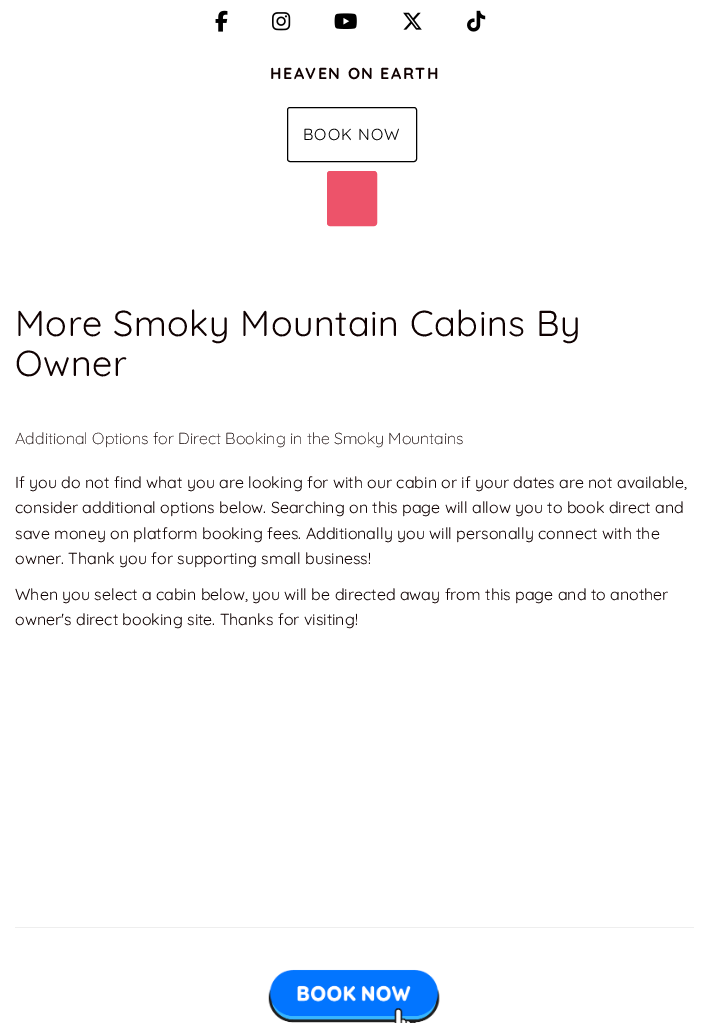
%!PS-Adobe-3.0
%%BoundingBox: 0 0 709 1023
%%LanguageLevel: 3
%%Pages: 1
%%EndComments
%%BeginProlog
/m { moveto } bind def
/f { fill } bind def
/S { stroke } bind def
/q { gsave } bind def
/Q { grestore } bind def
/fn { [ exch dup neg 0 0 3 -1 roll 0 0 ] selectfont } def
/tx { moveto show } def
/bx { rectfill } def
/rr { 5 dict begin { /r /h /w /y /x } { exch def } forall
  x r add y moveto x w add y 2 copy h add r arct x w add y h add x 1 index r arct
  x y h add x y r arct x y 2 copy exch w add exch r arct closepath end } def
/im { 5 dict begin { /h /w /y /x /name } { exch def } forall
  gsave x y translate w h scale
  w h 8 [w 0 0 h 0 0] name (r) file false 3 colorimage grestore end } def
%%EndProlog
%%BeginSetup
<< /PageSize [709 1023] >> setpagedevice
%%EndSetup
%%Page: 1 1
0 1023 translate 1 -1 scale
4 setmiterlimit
1 setgray
0 0 709 1023 bx
(image0.raw) 215 10 13 22 im
(image1.raw) 272 12 19 19 im
(image2.raw) 334 13 23 16 im
(image3.raw) 403 12 19 18 im
(image4.raw) 467 10 19 22 im
/Quicksand-Bold 16 fn
0.059 0.004 0.004 setrgbcolor
270 79 m 1.5 0 (HEAVEN ON EARTH) ashow
0 setgray
287.5 107.5 129 54 2.5 rr S
/Quicksand-Regular 16 fn
303 140 m 1 0 (BOOK NOW) ashow
0.929 0.325 0.416 setrgbcolor
327.5 171.5 49 54 2.5 rr q f Q
S
/Quicksand-Regular 36 fn
0.059 0.004 0.004 setrgbcolor
15 336 m 0.5 0 (More Smoky Mountain Cabins By) ashow
15 376 m 0.5 0 (Owner) ashow
/Quicksand-Light 16 fn
(Additional Options for Direct Booking in the Smoky Mountains) 15 444 tx
/Quicksand-Regular 16 fn
(If you do not find what you are looking for with our cabin or if your dates are not available,) 15 488 tx
(consider additional options below. Searching on this page will allow you to book direct and) 15 513 tx
(save money on platform booking fees. Additionally you will personally connect with the) 15 539 tx
(owner. Thank you for supporting small business!) 15 564 tx
(When you select a cabin below, you will be directed away from this page and to another) 15 600 tx
(owner's direct booking site. Thanks for visiting!) 15 625 tx
0.933 setgray
15 927 679 1 bx
(image5.raw) 268 969 172 54 im
showpage
%%EOF
